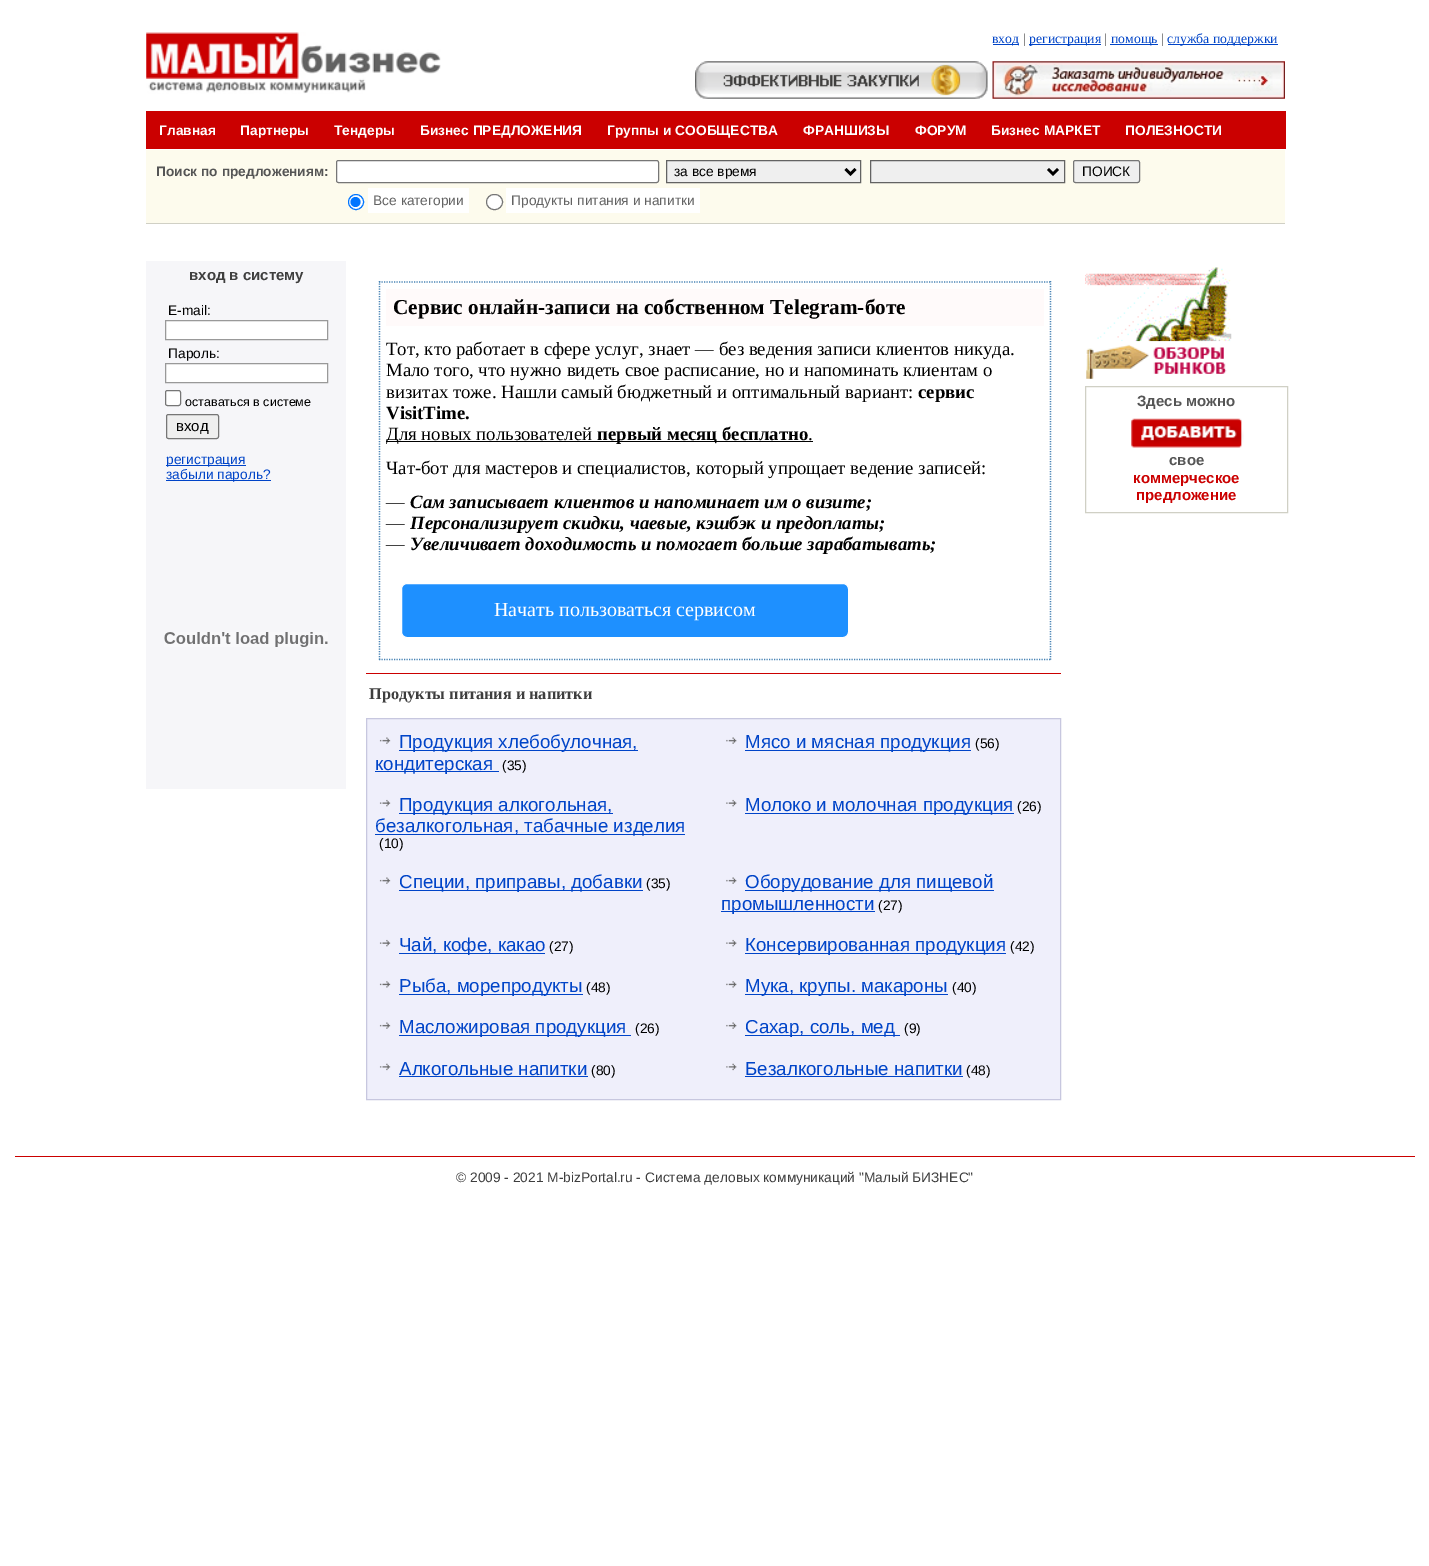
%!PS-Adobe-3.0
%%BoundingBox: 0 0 1429 1566
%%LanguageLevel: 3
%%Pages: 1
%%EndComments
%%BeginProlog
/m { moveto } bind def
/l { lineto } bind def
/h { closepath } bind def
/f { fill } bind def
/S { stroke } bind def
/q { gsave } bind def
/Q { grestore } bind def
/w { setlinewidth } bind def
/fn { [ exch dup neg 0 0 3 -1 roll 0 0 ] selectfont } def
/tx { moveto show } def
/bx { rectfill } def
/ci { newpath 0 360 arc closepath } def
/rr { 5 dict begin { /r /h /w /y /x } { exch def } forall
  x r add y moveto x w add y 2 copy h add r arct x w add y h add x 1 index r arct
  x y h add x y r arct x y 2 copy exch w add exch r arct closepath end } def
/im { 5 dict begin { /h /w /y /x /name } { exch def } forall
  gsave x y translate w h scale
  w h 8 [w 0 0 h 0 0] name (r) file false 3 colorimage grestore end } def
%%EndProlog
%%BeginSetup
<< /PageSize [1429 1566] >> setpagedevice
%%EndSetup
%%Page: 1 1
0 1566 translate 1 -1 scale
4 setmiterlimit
1 setgray
0 0 1429 1566 bx
(image0.raw) 146 32 295 62 im
0 0.267 0.784 setrgbcolor
993 44 26 1 bx
/LiberationSerif-Regular 13.75 fn
(вход) 992 43 tx
0.388 setgray
(|) 1023 43 tx
0 0.267 0.784 setrgbcolor
1029 44 72 1 bx
(регистрация) 1029 43 tx
0.388 setgray
(|) 1104 43 tx
0 0.267 0.784 setrgbcolor
1110 44 48 1 bx
(помощь) 1111 43 tx
0.388 setgray
(|) 1161 43 tx
0 0.267 0.784 setrgbcolor
1168 44 110 1 bx
(служба поддержки) 1167 43 tx
(image1.raw) 695 61 293 38 im
(image2.raw) 992 61 293 38 im
0.796 0 0 setrgbcolor
146 111 1140 38 bx
/LiberationSans-Bold 13.75 fn
1 setgray
(Главная) 159 135 tx
(Партнеры) 240 135 tx
(Тендеры) 334 135 tx
(Бизнес ПРЕДЛОЖЕНИЯ) 420 135 tx
(Группы и СООБЩЕСТВА) 607 135 tx
(ФРАНШИЗЫ) 803 135 tx
(ФОРУМ) 915 135 tx
(Бизнес МАРКЕТ) 991 135 tx
(ПОЛЕЗНОСТИ) 1125 135 tx
0.992 0.984 0.929 setrgbcolor
146 150 1139 73 bx
0.816 0.816 0.773 setrgbcolor
146 223 1139 1 bx
0.333 setgray
(Поиск по предложениям:) 156 176 tx
1 setgray
336.5 160.5 322 22 2 rr q f Q
0.463 setgray
S
0.937 setgray
666.5 160.5 m 860.5 160.5 l 860.5 182.5 l 666.5 182.5 l h q f Q
0.388 setgray
S
0 setgray
2.5 w
845.5 169 m 850.5 174 l 855.5 169 l S
/LiberationSans-Regular 13.75 fn
(за все время) 674 176 tx
0.937 setgray
870.5 160.5 m 1064.5 160.5 l 1064.5 182.5 l 870.5 182.5 l h q f Q
0.388 setgray
1 w
S
0 setgray
2.5 w
1048 169 m 1053 174 l 1058 169 l S
0.937 setgray
1073.5 160.5 66 22 2 rr q f Q
0.463 setgray
1 w
S
0 setgray
(ПОИСК) 1082 176 tx
1 setgray
356 202 7.5 ci q f Q
0 0.459 1 setrgbcolor
S
355.5 202 5 ci f
1 setgray
368 188 101 25 bx
0.388 setgray
(Все категории) 373 205 tx
1 setgray
486.5 194.5 16 15 7.5 rr q f Q
0.463 setgray
S
1 setgray
506 188 194 25 bx
0.388 setgray
(Продукты питания и напитки) 511 205 tx
0.965 0.965 0.976 setrgbcolor
146 261 200 528 bx
/LiberationSans-Bold 15 fn
0.243 setgray
(вход в систему) 189 280 tx
/LiberationSans-Regular 13.75 fn
0 setgray
(E-mail:) 168 315 tx
1 setgray
165.5 320.5 m 327.5 320.5 l 327.5 339.5 l 165.5 339.5 l h q f Q
0.6 setgray
S
0 setgray
(Пароль:) 168 358 tx
1 setgray
165.5 363.5 m 327.5 363.5 l 327.5 382.5 l 165.5 382.5 l h q f Q
0.6 setgray
S
1 setgray
165.5 390.5 15 15 2 rr q f Q
0.463 setgray
S
/LiberationSans-Regular 12.5 fn
0 setgray
(оставаться в системе) 185 406 tx
0.937 setgray
166.5 414.5 52 24 2 rr q f Q
0.463 setgray
S
/LiberationSans-Regular 15 fn
0 setgray
(вход) 176 431 tx
0 0.267 0.784 setrgbcolor
166 465 80 1 bx
/LiberationSans-Regular 13.75 fn
(регистрация) 166 464 tx
166 480 105 1 bx
(забыли пароль?) 166 479 tx
(image3.raw) 164 632 164 15 im
0.275 0.51 0.706 setrgbcolor
1.2 w
[1.25 1.25] 0 setdash
379 282 m 1051 282 l S
1050.5 281 m 1050.5 660 l S
379 659.5 m 1051 659.5 l S
379.5 281 m 379.5 660 l S
1 0.98 0.98 setrgbcolor
386 289 658 37 bx
/LiberationSerif-Bold 21.25 fn
0 setgray
(Сервис онлайн-записи на собственном Telegram-боте) 393 314 tx
/LiberationSerif-Regular 18.75 fn
(Тот, кто работает в сфере услуг, знает — без ведения записи клиентов никуда.) 386 355 tx
(Мало того, что нужно видеть свое расписание, но и напоминать клиентам о) 386 376 tx
(визитах тоже. Нашли самый бюджетный и оптимальный вариант:) 386 398 tx
/LiberationSerif-Bold 18.75 fn
(сервис) 918 398 tx
(VisitTime.) 386 419 tx
386 441 427 1 bx
/LiberationSerif-Regular 18.75 fn
(Для новых пользователей) 386 440 tx
/LiberationSerif-Bold 18.75 fn
(первый месяц бесплатно) 597 440 tx
/LiberationSerif-Regular 18.75 fn
(.) 808 440 tx
(Чат-бот для мастеров и специалистов, который упрощает ведение записей:) 386 474 tx
(—) 386 508 tx
/LiberationSerif-BoldItalic 18.75 fn
(Сам записывает клиентов и напоминает им о визите;) 410 508 tx
/LiberationSerif-Regular 18.75 fn
(—) 386 529 tx
/LiberationSerif-BoldItalic 18.75 fn
(Персонализирует скидки, чаевые, кэшбэк и предоплаты;) 410 529 tx
/LiberationSerif-Regular 18.75 fn
(—) 386 550 tx
/LiberationSerif-BoldItalic 18.75 fn
(Увеличивает доходимость и помогает больше зарабатывать;) 410 550 tx
0.118 0.565 1 setrgbcolor
401.5 583.5 447 54 5.5 rr q f Q
1 setgray
1 w
[] 0 setdash
S
/LiberationSerif-Regular 20 fn
(Начать пользоваться сервисом) 494 616 tx
0.796 0 0 setrgbcolor
366 673 695 1 bx
/LiberationSerif-Bold 16.25 fn
0.243 setgray
(Продукты питания и напитки) 369 699 tx
0.937 0.937 0.984 setrgbcolor
366.5 718.5 m 1060.5 718.5 l 1060.5 1099.5 l 366.5 1099.5 l h q f Q
0.78 0.78 0.875 setrgbcolor
S
(image4.raw) 379 737 12 7 im
0 0.267 0.784 setrgbcolor
399 750 239 1 bx
/LiberationSans-Regular 18.75 fn
(Продукция хлебобулочная,) 399 748 tx
375 771 124 1 bx
(кондитерская) 375 770 tx
/LiberationSans-Regular 13.75 fn
0 setgray
(\(35\)) 502 770 tx
(image5.raw) 726 737 11 7 im
0 0.267 0.784 setrgbcolor
745 750 226 1 bx
/LiberationSans-Regular 18.75 fn
(Мясо и мясная продукция) 745 748 tx
/LiberationSans-Regular 13.75 fn
0 setgray
(\(56\)) 975 748 tx
(image6.raw) 379 799 12 8 im
0 0.267 0.784 setrgbcolor
399 813 214 1 bx
/LiberationSans-Regular 18.75 fn
(Продукция алкогольная,) 399 811 tx
375 834 310 1 bx
(безалкогольная, табачные изделия) 375 832 tx
/LiberationSans-Regular 13.75 fn
0 setgray
(\(10\)) 379 848 tx
(image7.raw) 726 799 11 8 im
0 0.267 0.784 setrgbcolor
745 813 269 1 bx
/LiberationSans-Regular 18.75 fn
(Молоко и молочная продукция) 745 811 tx
/LiberationSans-Regular 13.75 fn
0 setgray
(\(26\)) 1017 811 tx
(image4.raw) 379 877 12 7 im
0 0.267 0.784 setrgbcolor
399 890 244 1 bx
/LiberationSans-Regular 18.75 fn
(Специи, приправы, добавки) 399 888 tx
/LiberationSans-Regular 13.75 fn
0 setgray
(\(35\)) 646 888 tx
(image5.raw) 726 877 11 7 im
0 0.267 0.784 setrgbcolor
745 890 249 1 bx
/LiberationSans-Regular 18.75 fn
(Оборудование для пищевой) 745 888 tx
721 911 154 1 bx
(промышленности) 721 910 tx
/LiberationSans-Regular 13.75 fn
0 setgray
(\(27\)) 878 910 tx
(image6.raw) 379 939 12 8 im
0 0.267 0.784 setrgbcolor
399 953 146 1 bx
/LiberationSans-Regular 18.75 fn
(Чай, кофе, какао) 399 951 tx
/LiberationSans-Regular 13.75 fn
0 setgray
(\(27\)) 549 951 tx
(image7.raw) 726 939 11 8 im
0 0.267 0.784 setrgbcolor
745 953 261 1 bx
/LiberationSans-Regular 18.75 fn
(Консервированная продукция) 745 951 tx
/LiberationSans-Regular 13.75 fn
0 setgray
(\(42\)) 1010 951 tx
(image8.raw) 379 981 12 7 im
0 0.267 0.784 setrgbcolor
399 994 184 1 bx
/LiberationSans-Regular 18.75 fn
(Рыба, морепродукты) 399 992 tx
/LiberationSans-Regular 13.75 fn
0 setgray
(\(48\)) 586 992 tx
(image9.raw) 726 981 11 7 im
0 0.267 0.784 setrgbcolor
745 994 203 1 bx
/LiberationSans-Regular 18.75 fn
(Мука, крупы. макароны) 745 992 tx
/LiberationSans-Regular 13.75 fn
0 setgray
(\(40\)) 952 992 tx
(image4.raw) 379 1022 12 7 im
0 0.267 0.784 setrgbcolor
399 1035 232 1 bx
/LiberationSans-Regular 18.75 fn
(Масложировая продукция) 399 1033 tx
/LiberationSans-Regular 13.75 fn
0 setgray
(\(26\)) 635 1033 tx
(image5.raw) 726 1022 11 7 im
0 0.267 0.784 setrgbcolor
745 1035 155 1 bx
/LiberationSans-Regular 18.75 fn
(Сахар, соль, мед) 745 1033 tx
/LiberationSans-Regular 13.75 fn
0 setgray
(\(9\)) 904 1033 tx
(image10.raw) 379 1063 12 8 im
/LiberationSans-Regular 18.75 fn
0 0.267 0.784 setrgbcolor
(Алкогольные напитки) 399 1075 tx
399 1076 189 1 bx
/LiberationSans-Regular 13.75 fn
0 setgray
(\(80\)) 591 1075 tx
(image11.raw) 726 1063 11 8 im
/LiberationSans-Regular 18.75 fn
0 0.267 0.784 setrgbcolor
(Безалкогольные напитки) 745 1075 tx
745 1076 218 1 bx
/LiberationSans-Regular 13.75 fn
0 setgray
(\(48\)) 966 1075 tx
(image12.raw) 1085 267 147 75 im
(image13.raw) 1086 341 144 38 im
0.816 0.816 0.773 setrgbcolor
1085.5 386.5 202 126 rectstroke
/LiberationSans-Bold 15 fn
0.333 setgray
(Здесь можно) 1137 406 tx
(image14.raw) 1131 418 113 30 im
(свое) 1169 465 tx
0.796 0 0 setrgbcolor
(коммерческое) 1133 483 tx
(предложение) 1136 500 tx
15 1156 1400 1 bx
/LiberationSans-Regular 13.75 fn
0.243 setgray
(© 2009 - 2021 M-bizPortal.ru - Система деловых коммуникаций "Малый БИЗНЕС") 456 1182 tx
showpage
%%EOF
